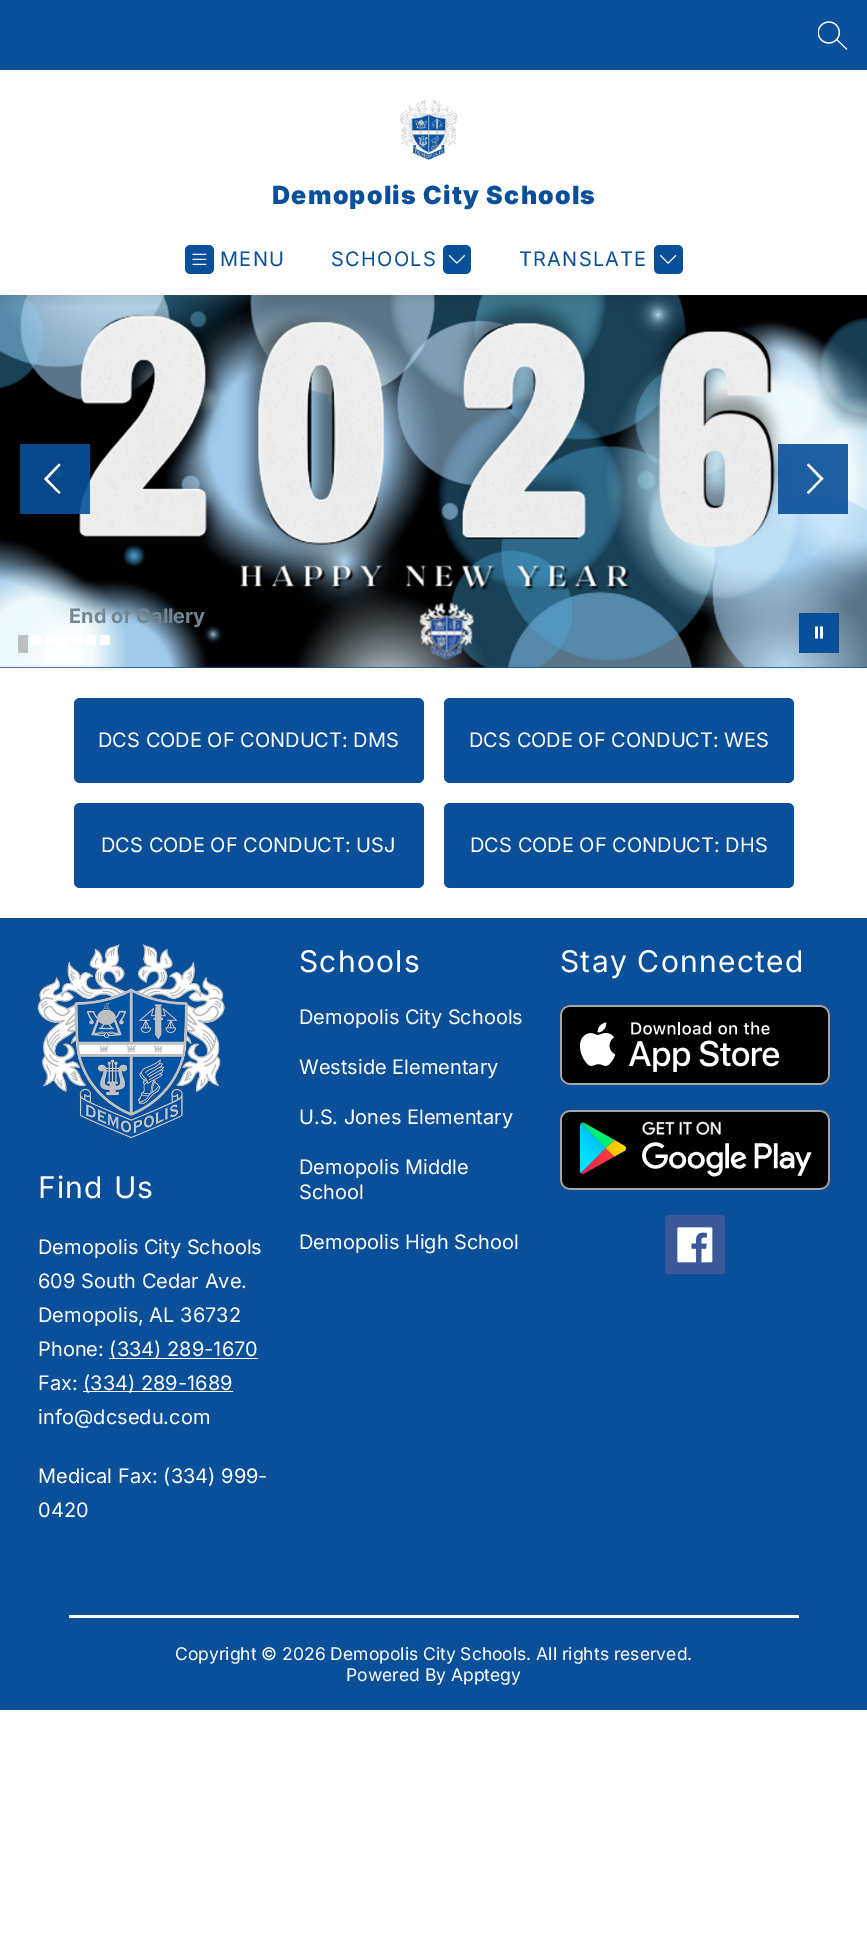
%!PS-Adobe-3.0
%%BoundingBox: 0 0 867 1946
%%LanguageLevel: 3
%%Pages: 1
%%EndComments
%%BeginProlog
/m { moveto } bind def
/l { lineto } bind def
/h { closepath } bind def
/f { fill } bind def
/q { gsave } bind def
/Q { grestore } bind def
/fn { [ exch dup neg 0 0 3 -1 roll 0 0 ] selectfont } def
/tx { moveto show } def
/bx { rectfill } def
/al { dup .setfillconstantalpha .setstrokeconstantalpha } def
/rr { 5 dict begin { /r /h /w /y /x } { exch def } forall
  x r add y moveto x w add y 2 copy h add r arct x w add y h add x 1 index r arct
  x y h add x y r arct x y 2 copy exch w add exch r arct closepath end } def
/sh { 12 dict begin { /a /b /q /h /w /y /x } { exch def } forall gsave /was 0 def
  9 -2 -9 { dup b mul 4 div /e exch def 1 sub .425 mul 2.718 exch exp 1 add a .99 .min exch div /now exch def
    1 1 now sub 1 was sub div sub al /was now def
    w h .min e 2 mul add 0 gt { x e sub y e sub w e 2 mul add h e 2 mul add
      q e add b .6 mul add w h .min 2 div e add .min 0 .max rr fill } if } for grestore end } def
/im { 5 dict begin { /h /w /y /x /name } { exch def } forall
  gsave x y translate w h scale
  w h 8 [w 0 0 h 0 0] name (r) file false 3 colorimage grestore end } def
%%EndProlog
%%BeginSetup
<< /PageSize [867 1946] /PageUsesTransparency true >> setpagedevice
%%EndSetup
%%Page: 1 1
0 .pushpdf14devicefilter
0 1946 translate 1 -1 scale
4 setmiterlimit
1 setgray
0 0 867 1946 bx
0.035 0.31 0.6 setrgbcolor
0 667 867 1 bx
(image5.raw) 0 295 867 373 im
q
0 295 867 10 rectclip
0 setgray
0 5 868 295 0 6 0.1 sh
Q
0 0 867 70 bx
(image0.raw) 818 21 30 29 im
(image1.raw) 400 100 58 60 im
/Inter-Black 25 fn
272 204 m 1.25 0 (Demopolis City Schools) ashow
(image2.raw) 185 245 29 29 im
/Inter-Regular 20 fn
220 266 m 1.25 0 (MENU) ashow
331 266 m 1.25 0 (SCHOOLS) ashow
(image3.raw) 443 245 28 29 im
519 266 m 1.25 0 (TRANSLATE) ashow
(image4.raw) 654 245 29 29 im
0.9 al
20 444 70 70 bx
1 al
1 setgray
47.5 479 m 60.5 465 l 59 463.5 l 44 479 l 59 494 l 60.5 492.5 l h eofill
0.9 al
0.035 0.31 0.6 setrgbcolor
778 444 70 70 bx
1 al
1 setgray
820 479 m 807 492.5 l 808.5 494 l 823.5 478.5 l 808.5 463.5 l 807 465 l h eofill
0.741 0.753 0.761 setrgbcolor
18 635 10 18 bx
1 setgray
31 635 10 10 bx
45 635 10 10 bx
59 635 10 10 bx
73 635 10 10 bx
86 635 10 10 bx
100 635 10 10 bx
0.035 0.31 0.6 setrgbcolor
799 613 40 40 bx
1 setgray
818 626.5 m 815 626.5 l 815 638.5 l 818 638.5 l h 823 626.5 m 820 626.5 l 820 638.5 l 823 638.5 l h eofill
/Inter-Bold 20 fn
0.447 0.525 0.576 setrgbcolor
(End of Gallery) 69 623 tx
0.035 0.31 0.6 setrgbcolor
74 698 350 85 6 rr f
/Inter-Regular 20 fn
1 setgray
(DCS CODE OF CONDUCT: DMS) 98 747 tx
0.035 0.31 0.6 setrgbcolor
444 698 350 85 6 rr f
1 setgray
(DCS CODE OF CONDUCT: WES) 469 747 tx
0.035 0.31 0.6 setrgbcolor
74 803 350 85 6 rr f
1 setgray
(DCS CODE OF CONDUCT: USJ) 101 852 tx
0.035 0.31 0.6 setrgbcolor
444 803 350 85 6 rr f
1 setgray
(DCS CODE OF CONDUCT: DHS) 470 852 tx
0.035 0.31 0.6 setrgbcolor
0 918 867 792 bx
/Inter-Regular 30 fn
1 setgray
299 972 m 1.25 0 (Schools) ashow
/Inter-Regular 20 fn
(Demopolis City Schools) 299 1024 tx
(Westside Elementary) 299 1074 tx
(U.S. Jones Elementary) 299 1124 tx
(Demopolis Middle) 299 1174 tx
(School) 299 1199 tx
(Demopolis High School) 299 1249 tx
/Inter-Regular 30 fn
560 972 m 1.25 0 (Stay Connected) ashow
(image6.raw) 560 1005 270 80 im
(image7.raw) 560 1110 270 80 im
(image8.raw) 665 1215 60 59 im
(image9.raw) 37 944 188 194 im
38 1198 m 1.25 0 (Find Us) ashow
/Inter-Regular 20 fn
(Demopolis City Schools) 38 1254 tx
(609 South Cedar Ave.) 38 1288 tx
(Demopolis, AL 36732) 38 1322 tx
(Phone: \(334\) 289-1670) 38 1356 tx
109 1358 149 1 bx
(Fax:) 38 1390 tx
83 1391 150 1 bx
(\(334\) 289-1689) 83 1390 tx
(info@dcsedu.com) 38 1424 tx
(Medical Fax: \(334\) 999-) 38 1483 tx
(0420) 38 1517 tx
69 1615 730 3 bx
/Inter-Regular 17.5 fn
(Copyright © 2026 Demopolis City Schools. All rights reserved.) 175 1660 tx
(Powered By Apptegy) 346 1681 tx
.poppdf14devicefilter showpage
%%EOF
